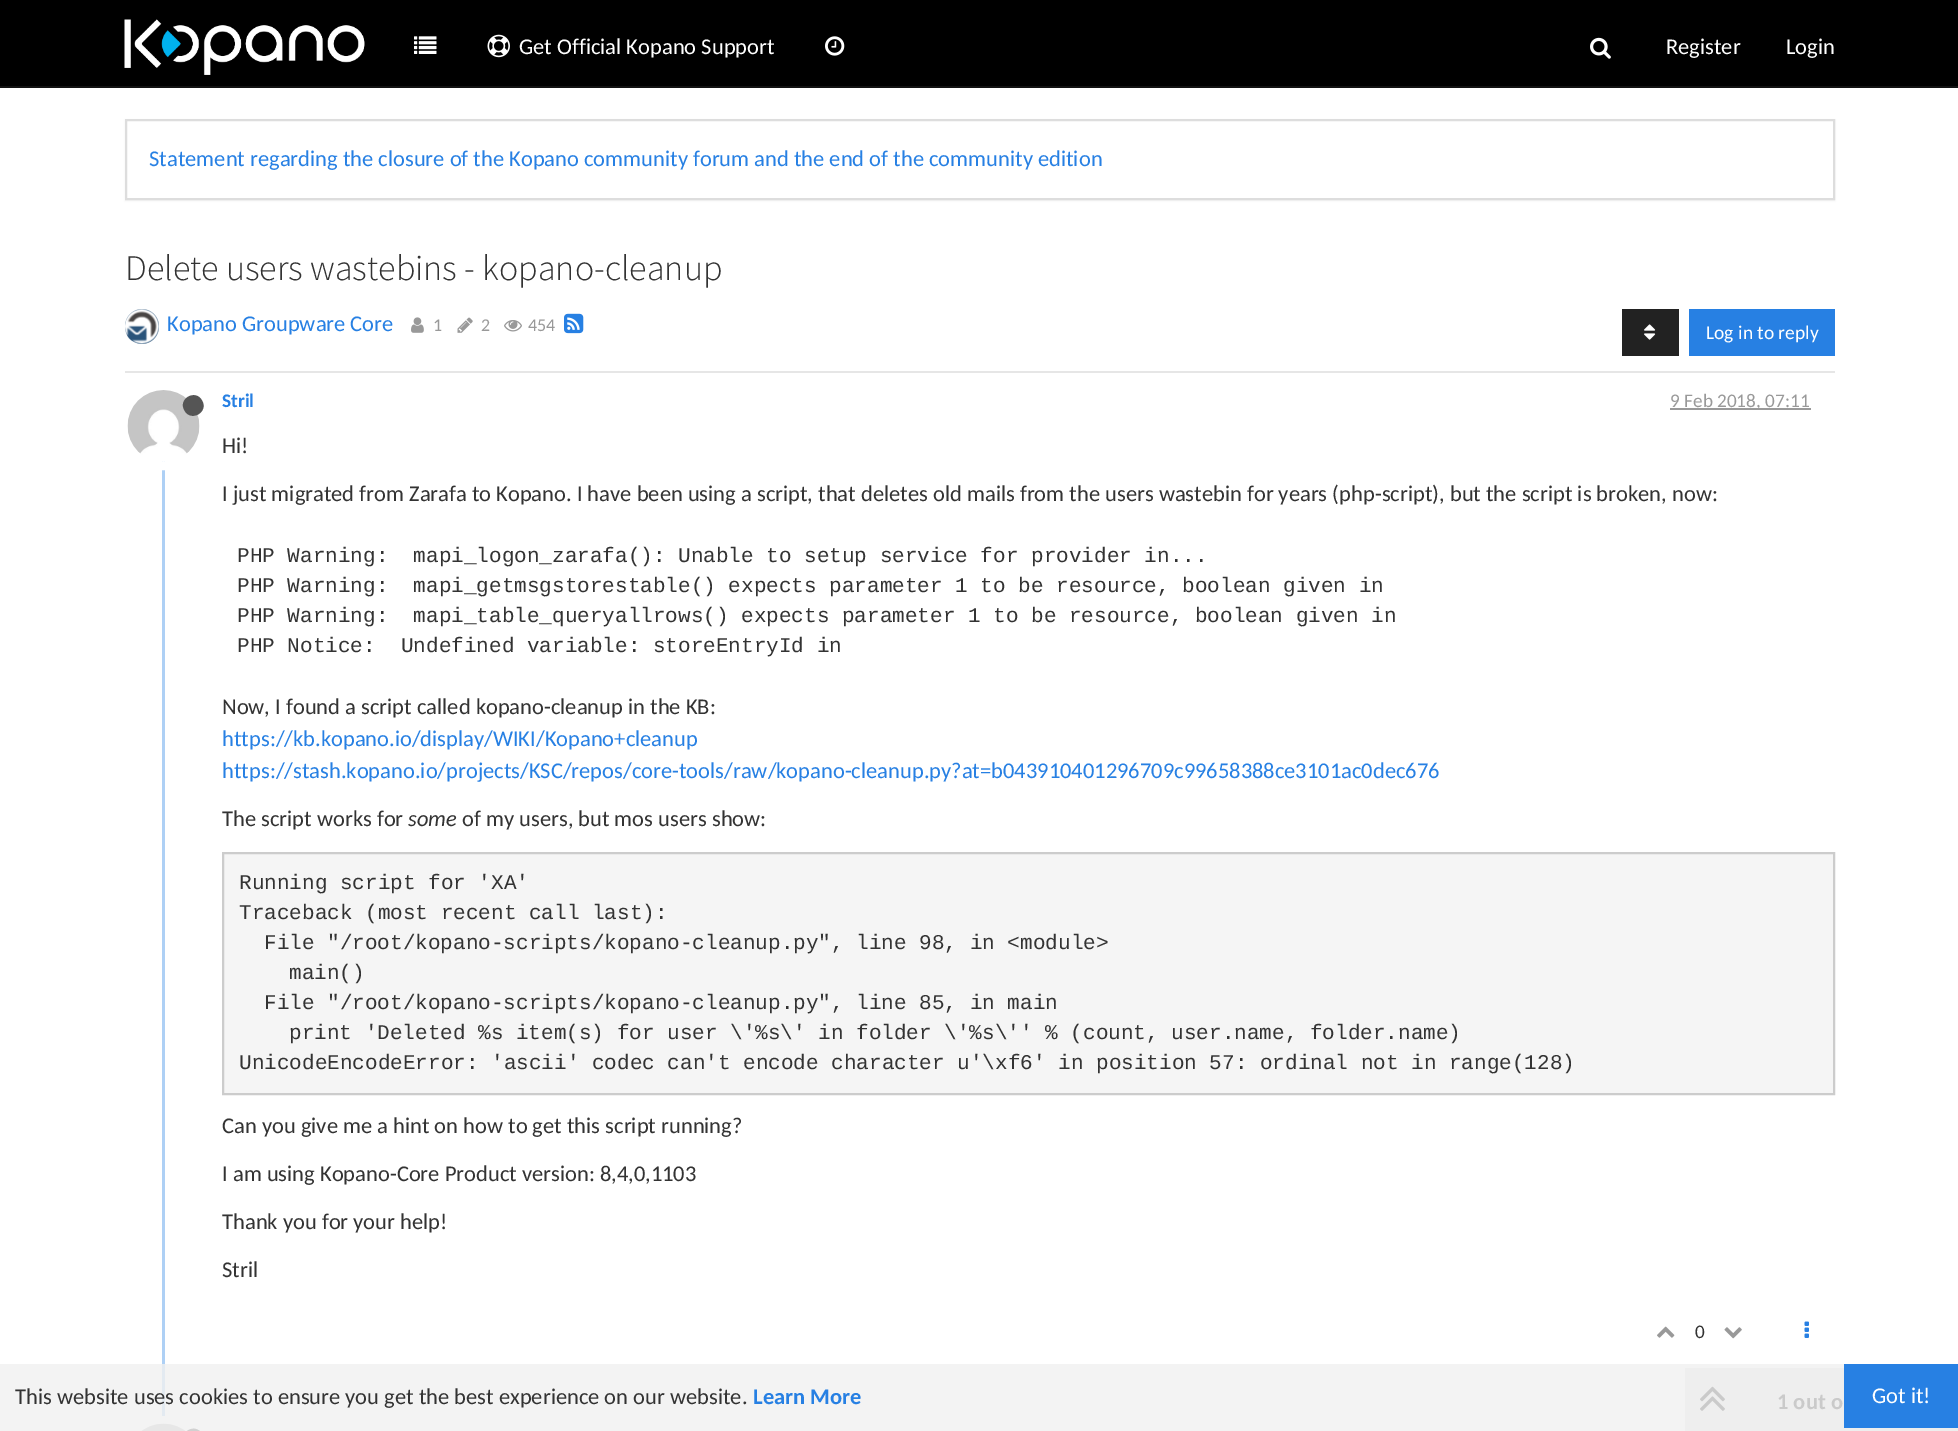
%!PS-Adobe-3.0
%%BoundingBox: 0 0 1958 1431
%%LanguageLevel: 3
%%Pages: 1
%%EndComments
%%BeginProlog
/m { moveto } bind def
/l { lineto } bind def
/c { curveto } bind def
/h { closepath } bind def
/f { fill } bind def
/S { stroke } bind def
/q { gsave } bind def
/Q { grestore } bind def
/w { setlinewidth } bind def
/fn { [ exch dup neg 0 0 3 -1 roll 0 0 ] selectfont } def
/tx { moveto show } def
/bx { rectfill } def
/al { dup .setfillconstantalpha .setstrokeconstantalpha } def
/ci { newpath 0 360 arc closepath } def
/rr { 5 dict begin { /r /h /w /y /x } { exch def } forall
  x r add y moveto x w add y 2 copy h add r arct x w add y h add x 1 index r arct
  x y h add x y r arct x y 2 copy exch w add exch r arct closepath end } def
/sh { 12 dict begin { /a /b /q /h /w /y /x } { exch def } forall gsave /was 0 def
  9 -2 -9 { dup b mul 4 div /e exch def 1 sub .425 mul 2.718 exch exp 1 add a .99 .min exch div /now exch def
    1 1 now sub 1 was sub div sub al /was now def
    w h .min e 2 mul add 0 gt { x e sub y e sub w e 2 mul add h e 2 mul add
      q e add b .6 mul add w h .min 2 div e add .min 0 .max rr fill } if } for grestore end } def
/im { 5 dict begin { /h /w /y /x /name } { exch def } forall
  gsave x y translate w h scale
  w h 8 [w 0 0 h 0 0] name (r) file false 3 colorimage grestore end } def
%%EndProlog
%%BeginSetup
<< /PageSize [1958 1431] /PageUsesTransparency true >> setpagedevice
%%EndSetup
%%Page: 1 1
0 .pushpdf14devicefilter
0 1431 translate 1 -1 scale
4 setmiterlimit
1 setgray
0 0 1958 1431 bx
0.953 setgray
0 1364 1844 67 bx
0 setgray
0 0 1958 86 bx
0.071 setgray
0 86 1958 2 bx
(image0.raw) 124 19 241 56 im
(image1.raw) 414 36 23 18 im
(image2.raw) 487 34 23 24 im
/Carlito-Regular 22.5 fn
1 setgray
(Get Official Kopano Support) 519 54 tx
(image3.raw) 825 36 20 20 im
(image4.raw) 1590 37 21 22 im
(Register) 1666 54 tx
(Login) 1786 54 tx
0 setgray
125 120 1710 81 0 1 0.05 sh
1 setgray
126 120 m 1834 120 l 1834 199 l 126 199 l h q f Q
0.867 setgray
2 w
S
0.153 0.502 0.89 setrgbcolor
(Statement regarding the closure of the Kopano community forum and the end of the community edition) 149 166 tx
/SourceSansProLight-Light 36 fn
0.2 setgray
(Delete users wastebins - kopano-cleanup) 125 280 tx
0.902 setgray
125 371 1710 2 bx
0.165 0.329 0.482 setrgbcolor
125 309 34 35 17 rr f
(image5.raw) 125 309 34 35 im
/Carlito-Regular 22.5 fn
0.153 0.502 0.89 setrgbcolor
(Kopano Groupware Core) 167 331 tx
(image6.raw) 411 317 13 16 im
/Carlito-Regular 18 fn
0.6 setgray
(1) 433 331 tx
(image7.raw) 457 317 16 16 im
(2) 481 331 tx
(image8.raw) 504 320 18 12 im
(454) 528 331 tx
(image9.raw) 564 313 20 21 im
0.133 setgray
1622 309 57 47 bx
(image10.raw) 1644 324 12 16 im
0.153 0.502 0.89 setrgbcolor
1689 309 146 47 bx
/Carlito-Regular 19.5 fn
1 setgray
(Log in to reply) 1706 339 tx
0.682 0.816 0.961 setrgbcolor
162 461 3 903 bx
0.89 0.918 0.945 setrgbcolor
162 1364 3 53 bx
1 setgray
8 w
163.5 426.5 39.5 ci S
(image11.raw) 127 390 73 72 im
0.333 setgray
202 400.5 m 209 412 191 422.5 184.5 410.5 c 177.5 399 195.5 388.5 202 400.5 c h f
/Carlito-Bold 19.25 fn
0.153 0.502 0.89 setrgbcolor
(Stril) 222 407 tx
0.6 setgray
1670 408 141 2 bx
/Carlito-Regular 19.25 fn
(9 Feb 2018, 07:11) 1670 407 tx
/Carlito-Regular 22.5 fn
0.2 setgray
(Hi!) 222 453 tx
(I just migrated from Zarafa to Kopano. I have been using a script, that deletes old mails from the users wastebin for years \(php-script\), but the script is broken, now:) 222 501 tx
/LiberationMono-Regular 21 fn
(PHP Warning:  mapi_logon_zarafa\(\): Unable to setup service for provider in...) 237 562 tx
(PHP Warning:  mapi_getmsgstorestable\(\) expects parameter 1 to be resource, boolean given in) 237 592 tx
(PHP Warning:  mapi_table_queryallrows\(\) expects parameter 1 to be resource, boolean given in) 237 622 tx
(PHP Notice:  Undefined variable: storeEntryId in) 237 652 tx
/Carlito-Regular 22.5 fn
(Now, I found a script called kopano-cleanup in the KB:) 222 714 tx
0.153 0.502 0.89 setrgbcolor
(https://kb.kopano.io/display/WIKI/Kopano+cleanup) 222 746 tx
(https://stash.kopano.io/projects/KSC/repos/core-tools/raw/kopano-cleanup.py?at=b043910401296709c99658388ce3101ac0dec676) 222 778 tx
0.2 setgray
(The script works for) 222 826 tx
/Carlito-Italic 22.5 fn
(some) 408 826 tx
/Carlito-Regular 22.5 fn
(of my users, but mos users show:) 462 826 tx
0.961 setgray
223 853 m 1834 853 l 1834 1094 l 223 1094 l h q f Q
0.8 setgray
2 w
S
/LiberationMono-Regular 21 fn
0.2 setgray
(Running script for 'XA') 239 889 tx
(Traceback \(most recent call last\):) 239 919 tx
(File "/root/kopano-scripts/kopano-cleanup.py", line 98, in <module>) 264 949 tx
(main\(\)) 289 979 tx
(File "/root/kopano-scripts/kopano-cleanup.py", line 85, in main) 264 1009 tx
(print 'Deleted %s item\(s\) for user \\'%s\\' in folder \\'%s\\'' % \(count, user.name, folder.name\)) 289 1039 tx
(UnicodeEncodeError: 'ascii' codec can't encode character u'\\xf6' in position 57: ordinal not in range\(128\)) 239 1069 tx
/Carlito-Regular 22.5 fn
(Can you give me a hint on how to get this script running?) 222 1133 tx
(I am using Kopano-Core Product version: 8,4,0,1103) 222 1181 tx
(Thank you for your help!) 222 1229 tx
(Stril) 222 1277 tx
(image12.raw) 1657 1326 18 12 im
/Carlito-Regular 19.25 fn
(0) 1695 1338 tx
(image13.raw) 1724 1327 18 12 im
(image14.raw) 1804 1321 5 17 im
0.953 setgray
8 w
124 1420 79 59 39.5 rr S
(image15.raw) 141 1423 44 8 im
0.82 setgray
202 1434 m 209 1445.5 191 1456 184.5 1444 c 177.5 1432.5 195.5 1422 202 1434 c h f
0.933 setgray
1685 1368 273 63 bx
(image16.raw) 1700 1386 25 25 im
/Carlito-Bold 22.5 fn
0.792 setgray
(1 out o) 1777 1409 tx
/Carlito-Regular 22.5 fn
0.2 setgray
(This website uses cookies to ensure you get the best experience on our website.) 15 1404 tx
/Carlito-Bold 22.5 fn
0.153 0.502 0.89 setrgbcolor
(Learn More) 753 1404 tx
1844 1364 114 64 bx
/Carlito-Regular 22.5 fn
1 setgray
(Got it!) 1872 1403 tx
.poppdf14devicefilter showpage
%%EOF
